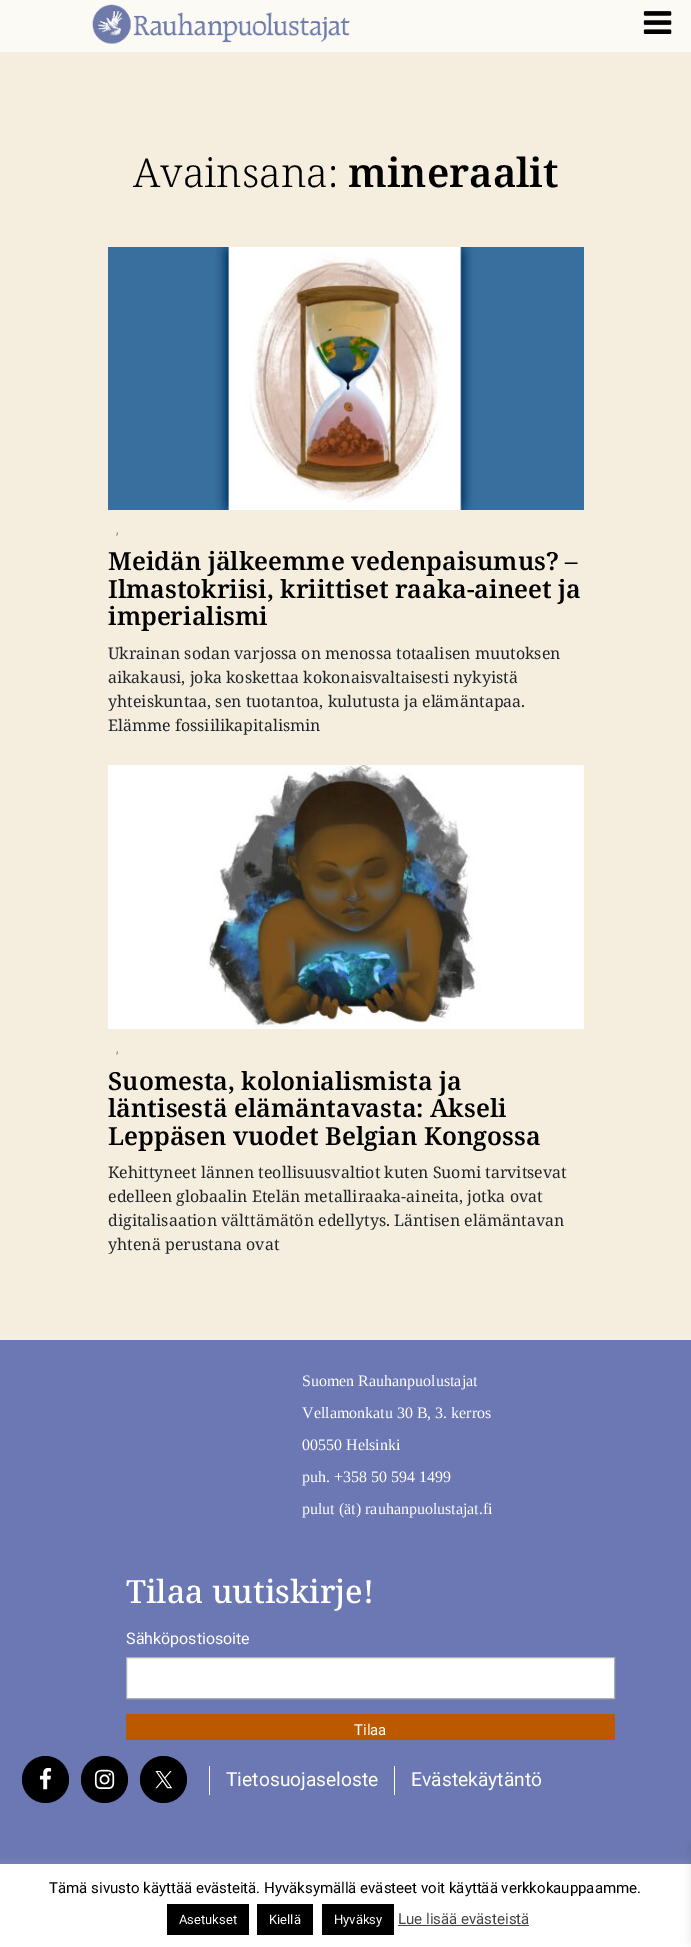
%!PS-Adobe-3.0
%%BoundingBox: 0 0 691 1947
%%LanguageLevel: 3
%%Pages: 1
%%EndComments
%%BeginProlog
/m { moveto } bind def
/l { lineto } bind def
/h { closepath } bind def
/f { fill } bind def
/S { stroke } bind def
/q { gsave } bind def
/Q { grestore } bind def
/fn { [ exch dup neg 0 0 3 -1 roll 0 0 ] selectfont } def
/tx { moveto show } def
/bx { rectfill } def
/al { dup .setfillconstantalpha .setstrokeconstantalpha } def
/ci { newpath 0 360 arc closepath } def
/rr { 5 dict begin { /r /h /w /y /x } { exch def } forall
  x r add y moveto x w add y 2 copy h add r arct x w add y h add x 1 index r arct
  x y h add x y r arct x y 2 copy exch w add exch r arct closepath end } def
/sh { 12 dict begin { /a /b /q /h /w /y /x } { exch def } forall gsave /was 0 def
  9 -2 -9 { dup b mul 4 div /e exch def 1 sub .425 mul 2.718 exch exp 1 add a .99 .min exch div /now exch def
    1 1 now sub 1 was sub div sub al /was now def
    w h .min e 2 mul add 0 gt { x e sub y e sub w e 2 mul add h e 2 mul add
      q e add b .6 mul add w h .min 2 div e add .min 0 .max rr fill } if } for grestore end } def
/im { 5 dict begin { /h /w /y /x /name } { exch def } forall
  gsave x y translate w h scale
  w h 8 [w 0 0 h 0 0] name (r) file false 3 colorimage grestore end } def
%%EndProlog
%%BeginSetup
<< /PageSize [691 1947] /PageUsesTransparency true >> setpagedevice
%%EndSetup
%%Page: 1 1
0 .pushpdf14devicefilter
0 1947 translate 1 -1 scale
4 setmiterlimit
0.961 0.933 0.871 setrgbcolor
0 0 691 1947 bx
0.984 0.98 0.961 setrgbcolor
0 0 691 52 bx
(image0.raw) 92 4 258 40 im
(image1.raw) 643 11 29 23 im
/NotoSerif-Light 40 fn
0 setgray
(Avainsana:) 133 187 tx
/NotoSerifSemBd-SemiBold 40 fn
(mineraalit) 348 187 tx
(image2.raw) 108 247 476 263 im
/Roboto-Regular 13 fn
0.506 0.494 0.467 setrgbcolor
(,) 116 534 tx
/NotoSerifSemBd-SemiBold 25 fn
0 setgray
(Meidän jälkeemme vedenpaisumus? –) 108 570 tx
(Ilmastokriisi, kriittiset raaka-aineet ja) 108 598 tx
(imperialismi) 108 625 tx
/NotoSerif-Regular 16 fn
0.129 0.145 0.161 setrgbcolor
(Ukrainan sodan varjossa on menossa totaalisen muutoksen) 108 659 tx
(aikakausi, joka koskettaa kokonaisvaltaisesti nykyistä) 108 683 tx
(yhteiskuntaa, sen tuotantoa, kulutusta ja elämäntapaa.) 108 707 tx
(Elämme fossiilikapitalismin) 108 731 tx
(image3.raw) 108 765 476 264 im
/Roboto-Regular 13 fn
0.506 0.494 0.467 setrgbcolor
(,) 116 1053 tx
/NotoSerifSemBd-SemiBold 25 fn
0 setgray
(Suomesta, kolonialismista ja) 108 1090 tx
(läntisestä elämäntavasta: Akseli) 108 1117 tx
(Leppäsen vuodet Belgian Kongossa) 108 1145 tx
/NotoSerif-Regular 16 fn
0.129 0.145 0.161 setrgbcolor
(Kehittyneet lännen teollisuusvaltiot kuten Suomi tarvitsevat) 108 1178 tx
(edelleen globaalin Etelän metalliraaka-aineita, jotka ovat) 108 1202 tx
(digitalisaation välttämätön edellytys. Läntisen elämäntavan) 108 1226 tx
(yhtenä perustana ovat) 108 1250 tx
0.42 0.471 0.702 setrgbcolor
0 1340 691 524 bx
/LiberationSerif-Regular 16 fn
1 setgray
(Suomen Rauhanpuolustajat) 302 1386 tx
(Vellamonkatu 30 B, 3. kerros) 302 1418 tx
(00550 Helsinki) 302 1450 tx
(puh. +358 50 594 1499) 302 1482 tx
(pulut \(ät\) rauhanpuolustajat.fi) 302 1514 tx
/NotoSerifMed-Medium 32 fn
(Tilaa uutiskirje!) 126 1603 tx
/Roboto-Regular 16 fn
(Sähköpostiosoite) 126 1644 tx
126.5 1657.5 m 614.5 1657.5 l 614.5 1698.5 l 126.5 1698.5 l h q f Q
0.671 0.69 0.698 setrgbcolor
S
0.737 0.345 0 setrgbcolor
126 1714 489 26 bx
/Roboto-Regular 15 fn
1 setgray
(Tilaa) 354 1735 tx
0 setgray
45.5 1779.5 23.5 ci f
(image4.raw) 39 1768 13 22 im
104.5 1779.5 23.5 ci f
(image5.raw) 94 1769 21 20 im
163.5 1779.5 23.5 ci f
(image6.raw) 155 1771 18 18 im
1 setgray
209 1766 1 29 bx
/Roboto-Regular 19.25 fn
(Tietosuojaseloste) 226 1786 tx
394 1766 1 29 bx
(Evästekäytäntö) 411 1786 tx
0.675 0.671 0.671 setrgbcolor
0 1863 691 83 0 5 0.3 sh
1 setgray
0 1864 691 83 bx
/Roboto-Regular 15 fn
0 setgray
(Tämä sivusto käyttää evästeitä. Hyväksymällä evästeet voit käyttää verkkokauppaamme.) 49 1893 tx
167 1904 82 31 bx
/Roboto-Regular 13 fn
1 setgray
(Asetukset) 179 1924 tx
0 setgray
257 1904 56 31 bx
1 setgray
(Kiellä) 269 1924 tx
0 setgray
322 1904 72 31 bx
1 setgray
(Hyväksy) 334 1924 tx
/Roboto-Regular 15 fn
0.267 setgray
(Lue lisää evästeistä) 398 1924 tx
398 1925 131 1 bx
0 setgray
691 1845 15 97 0 5 0.1 sh
.poppdf14devicefilter showpage
%%EOF
